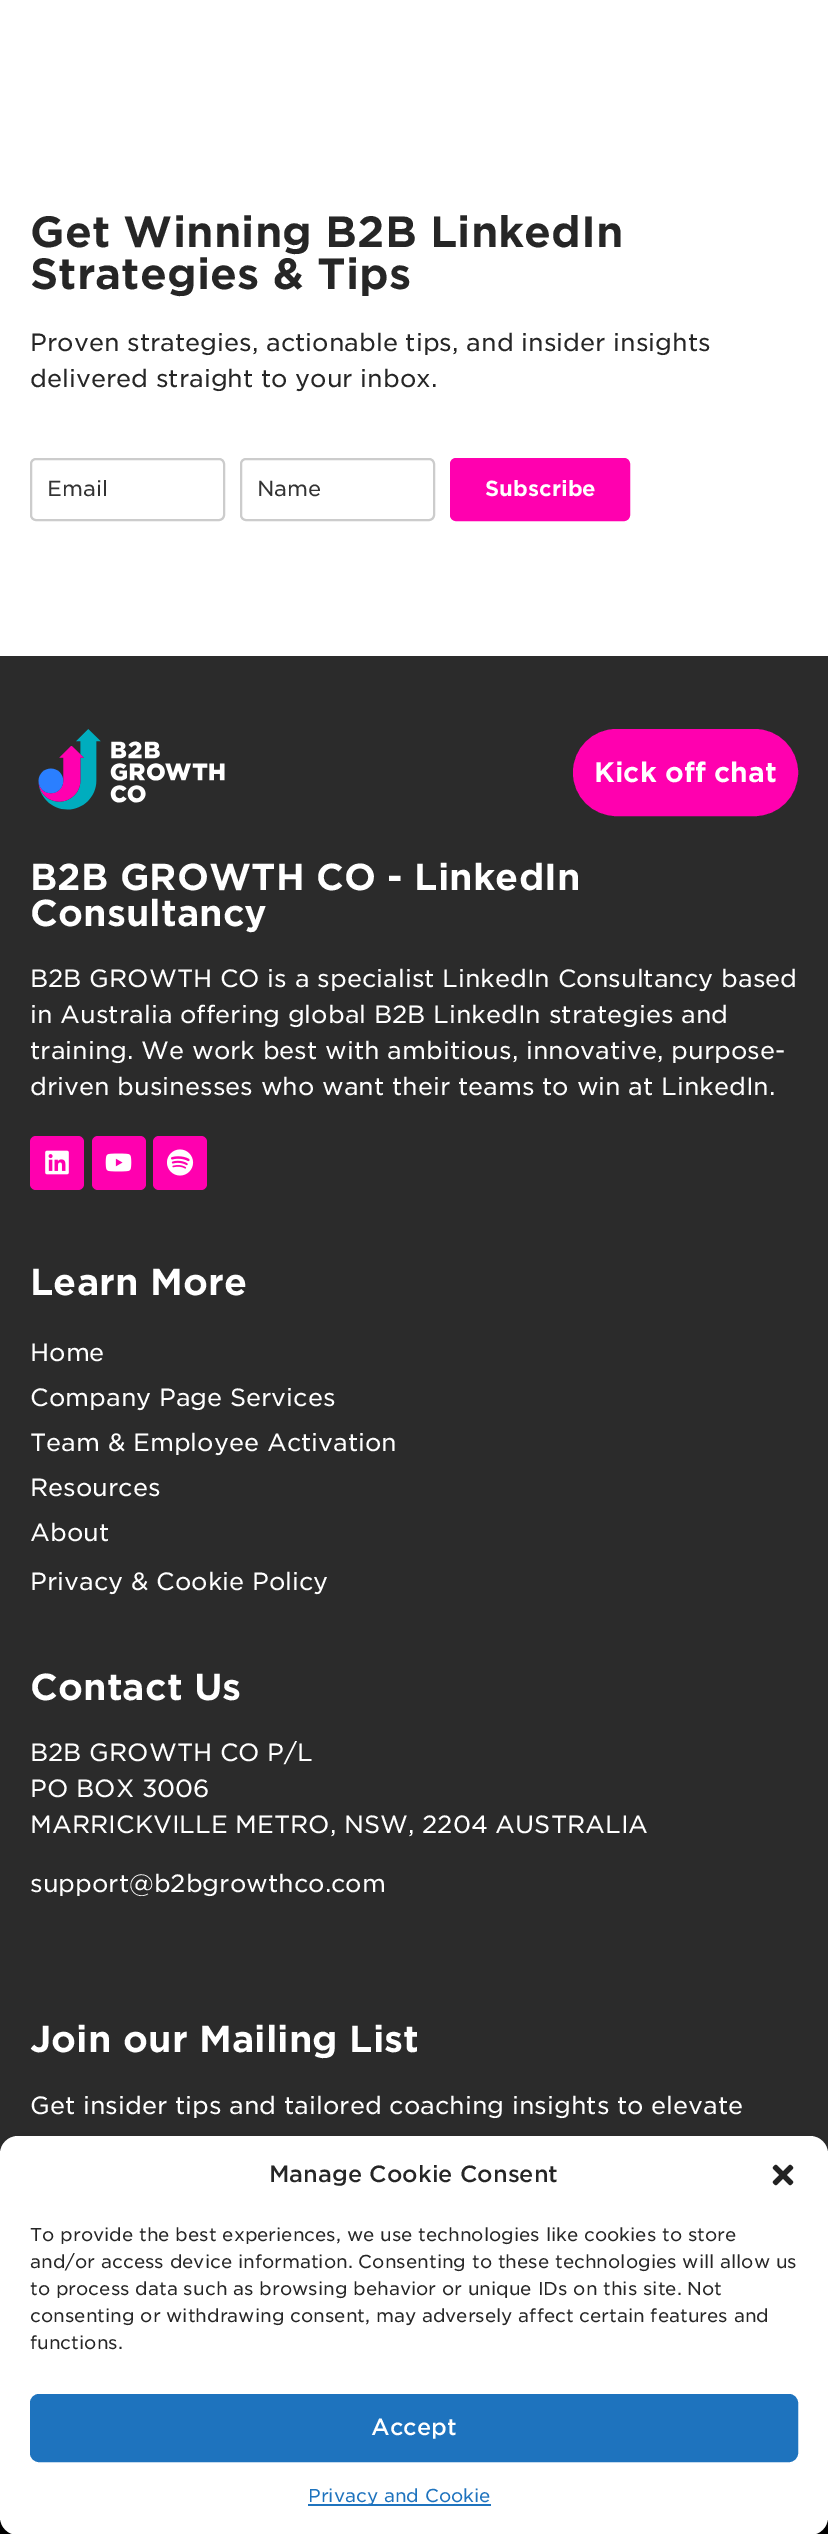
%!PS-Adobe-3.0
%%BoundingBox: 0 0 828 2534
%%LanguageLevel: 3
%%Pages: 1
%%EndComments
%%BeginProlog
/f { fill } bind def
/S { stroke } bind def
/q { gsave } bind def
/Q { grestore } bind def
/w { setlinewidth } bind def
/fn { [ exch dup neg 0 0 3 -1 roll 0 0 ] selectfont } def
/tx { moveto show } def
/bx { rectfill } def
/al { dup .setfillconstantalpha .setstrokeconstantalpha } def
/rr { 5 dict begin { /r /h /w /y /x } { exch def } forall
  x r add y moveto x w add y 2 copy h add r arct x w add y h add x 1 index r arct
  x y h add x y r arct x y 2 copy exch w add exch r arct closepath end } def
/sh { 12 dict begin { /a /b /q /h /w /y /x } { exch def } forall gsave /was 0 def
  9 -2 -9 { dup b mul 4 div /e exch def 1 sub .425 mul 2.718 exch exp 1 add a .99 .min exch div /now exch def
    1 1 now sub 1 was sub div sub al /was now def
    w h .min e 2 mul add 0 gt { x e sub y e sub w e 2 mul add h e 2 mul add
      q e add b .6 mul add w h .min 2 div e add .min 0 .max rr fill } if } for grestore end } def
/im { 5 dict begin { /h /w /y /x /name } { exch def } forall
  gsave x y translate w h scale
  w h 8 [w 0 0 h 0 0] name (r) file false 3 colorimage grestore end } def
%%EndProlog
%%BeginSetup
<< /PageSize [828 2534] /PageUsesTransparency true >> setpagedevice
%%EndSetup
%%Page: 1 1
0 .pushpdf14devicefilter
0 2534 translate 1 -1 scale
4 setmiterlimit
1 setgray
0 0 828 2534 bx
/Gotham-Bold 42 fn
0.149 setgray
(Get Winning B2B LinkedIn) 30 247 tx
(Strategies & Tips) 30 289 tx
/Gotham-Regular 24 fn
(Proven strategies, actionable tips, and insider insights) 30 351 tx
(delivered straight to your inbox.) 30 387 tx
0.8 setgray
2 w
31 459 193 61 5 rr S
/Gotham-Regular 21 fn
0.2 setgray
(Email) 47 496 tx
0.8 setgray
241 459 193 61 5 rr S
0.2 setgray
(Name) 257 496 tx
1 0 0.686 setrgbcolor
451 459 178 61 5 rr q f Q
S
/Gotham-Bold 21 fn
1 setgray
(Subscribe) 485 496 tx
0.169 setgray
0 656 828 1498 bx
(image0.raw) 38 729 187 81 im
1 0 0.686 setrgbcolor
574.5 730.5 222 84 42 rr q f Q
3 w
S
/Gotham-Bold 27 fn
1 setgray
(Kick off chat) 594 782 tx
/Gotham-Bold 36 fn
(B2B GROWTH CO - LinkedIn) 30 890 tx
(Consultancy) 30 926 tx
/Gotham-Regular 24 fn
(B2B GROWTH CO is a specialist LinkedIn Consultancy based) 30 987 tx
(in Australia offering global B2B LinkedIn strategies and) 30 1023 tx
(training. We work best with ambitious, innovative, purpose-) 30 1059 tx
(driven businesses who want their teams to win at LinkedIn.) 30 1095 tx
1 0 0.686 setrgbcolor
30 1136 54 54 6 rr f
(image1.raw) 45 1150 24 25 im
92 1136 54 54 6 rr f
(image2.raw) 105 1153 27 19 im
153 1136 54 54 6 rr f
(image3.raw) 167 1149 27 27 im
/Gotham-Bold 36 fn
1 setgray
(Learn More) 30 1295 tx
/Gotham-Regular 24 fn
(Home) 30 1361 tx
(Company Page Services) 30 1406 tx
(Team & Employee Activation) 30 1451 tx
(Resources) 30 1496 tx
(About) 30 1541 tx
(Privacy & Cookie Policy) 30 1590 tx
/Gotham-Bold 36 fn
(Contact Us) 30 1700 tx
/Gotham-Regular 24 fn
(B2B GROWTH CO P/L) 30 1761 tx
(PO BOX 3006) 30 1797 tx
(MARRICKVILLE METRO, NSW, 2204 AUSTRALIA) 30 1833 tx
(support@b2bgrowthco.com) 30 1892 tx
/Gotham-Bold 36 fn
(Join our Mailing List) 30 2052 tx
/Gotham-Regular 24 fn
(Get insider tips and tailored coaching insights to elevate) 30 2114 tx
0 setgray
0 2517 828 17 bx
0 2151 828 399 18 15 0.19 sh
1 setgray
0 2136 828 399 18 rr f
/Gotham-Medium 22.5 fn
0.149 setgray
(Manage Cookie Consent) 269 2182 tx
(image4.raw) 772 2164 22 22 im
/Gotham-Regular 18 fn
(To provide the best experiences, we use technologies like cookies to store) 30 2241 tx
(and/or access device information. Consenting to these technologies will allow us) 30 2268 tx
(to process data such as browsing behavior or unique IDs on this site. Not) 30 2295 tx
(consenting or withdrawing consent, may adversely affect certain features and) 30 2322 tx
(functions.) 30 2349 tx
0.118 0.451 0.745 setrgbcolor
31 2395 766 66 8 rr q f Q
2 w
S
/Gotham-Medium 22.5 fn
1 setgray
(Accept) 371 2435 tx
0.118 0.451 0.745 setrgbcolor
308 2504 183 2 bx
/Gotham-Regular 18 fn
(Privacy and Cookie) 308 2502 tx
.poppdf14devicefilter showpage
%%EOF
